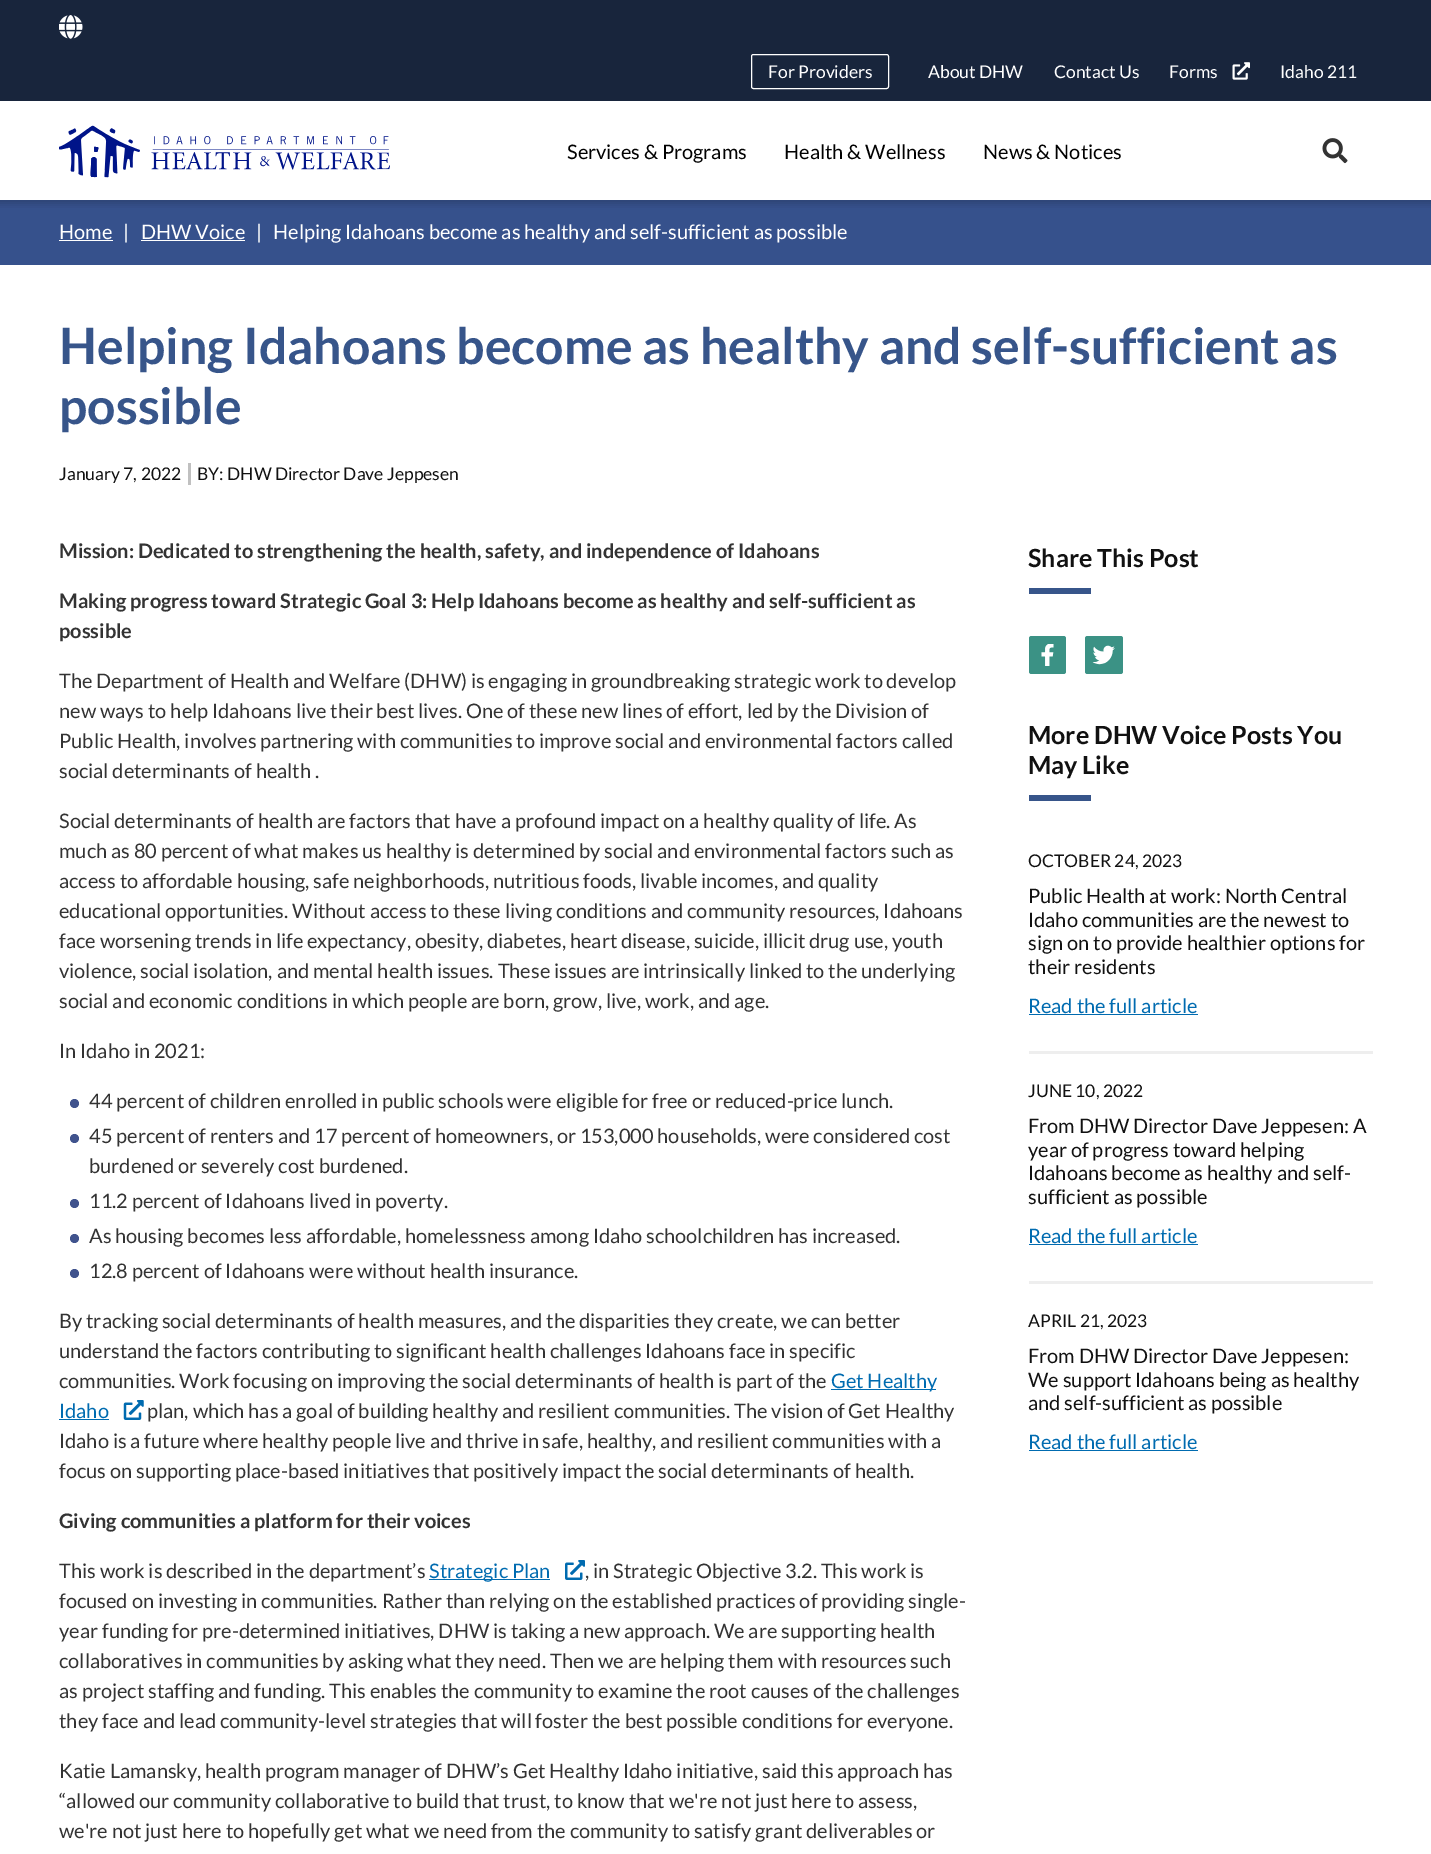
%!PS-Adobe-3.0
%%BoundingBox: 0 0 1431 1854
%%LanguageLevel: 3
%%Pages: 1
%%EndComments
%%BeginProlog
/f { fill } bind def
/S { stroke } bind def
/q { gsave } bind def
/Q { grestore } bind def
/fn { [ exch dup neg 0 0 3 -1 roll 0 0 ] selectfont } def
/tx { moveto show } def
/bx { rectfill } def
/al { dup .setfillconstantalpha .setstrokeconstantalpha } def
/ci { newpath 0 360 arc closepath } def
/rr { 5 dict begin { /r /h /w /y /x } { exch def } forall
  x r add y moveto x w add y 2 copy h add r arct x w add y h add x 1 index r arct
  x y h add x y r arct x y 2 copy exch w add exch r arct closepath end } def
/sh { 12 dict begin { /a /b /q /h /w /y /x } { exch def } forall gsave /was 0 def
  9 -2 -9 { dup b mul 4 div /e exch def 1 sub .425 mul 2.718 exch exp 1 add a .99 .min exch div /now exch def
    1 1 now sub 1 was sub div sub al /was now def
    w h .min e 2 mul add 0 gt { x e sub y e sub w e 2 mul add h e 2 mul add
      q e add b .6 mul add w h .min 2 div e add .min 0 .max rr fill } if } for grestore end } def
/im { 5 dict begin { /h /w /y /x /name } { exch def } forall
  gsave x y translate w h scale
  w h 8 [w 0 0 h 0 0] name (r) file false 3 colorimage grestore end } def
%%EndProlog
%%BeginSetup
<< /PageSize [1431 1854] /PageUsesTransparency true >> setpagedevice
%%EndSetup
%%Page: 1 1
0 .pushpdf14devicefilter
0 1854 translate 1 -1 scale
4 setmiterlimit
1 setgray
0 0 1431 1854 bx
0.212 0.318 0.549 setrgbcolor
0 200 1431 65 bx
q
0 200 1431 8 rectclip
0 setgray
-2 -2 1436 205 0 4 0.2 sh
Q
0.094 0.145 0.235 setrgbcolor
0 0 1431 101 bx
(image0.raw) 59 15 24 24 im
1 setgray
751.5 54.5 137 34 2 rr S
/Lato-Regular 17.5 fn
(For Providers) 768 78 tx
(About DHW) 928 78 tx
(Contact Us) 1054 78 tx
(Forms) 1169 78 tx
(image1.raw) 1232 62 18 18 im
(Idaho 211) 1280 78 tx
(image2.raw) 59 125 331 53 im
/Lato-Regular 20 fn
0 setgray
(Services & Programs) 567 159 tx
(Health & Wellness) 784 159 tx
(News & Notices) 983 159 tx
(image3.raw) 1322 138 26 26 im
1 setgray
(Home) 59 239 tx
59 240 54 1 bx
(|) 123 239 tx
(DHW Voice) 141 239 tx
141 240 104 1 bx
(|) 256 239 tx
(Helping Idahoans become as healthy and self-sufficient as possible) 273 239 tx
/Lato-Bold 50 fn
0.216 0.333 0.541 setrgbcolor
(Helping Idahoans become as healthy and self-sufficient as) 59 364 tx
(possible) 59 424 tx
0.753 setgray
188 463 3 22 bx
/Lato-Regular 17.5 fn
0.067 setgray
(January 7, 2022) 59 480 tx
(BY: DHW Director Dave Jeppesen) 197 480 tx
/Lato-Bold 20 fn
0.2 setgray
(Mission: Dedicated to strengthening the health, safety, and independence of Idahoans) 59 558 tx
(Making progress toward Strategic Goal 3: Help Idahoans become as healthy and self-sufficient as) 59 608 tx
(possible) 59 638 tx
/Lato-Regular 20 fn
(The Department of Health and Welfare \(DHW\) is engaging in groundbreaking strategic work to develop) 59 688 tx
(new ways to help Idahoans live their best lives. One of these new lines of effort, led by the Division of) 59 718 tx
(Public Health, involves partnering with communities to improve social and environmental factors called) 59 748 tx
(social determinants of health .) 59 778 tx
(Social determinants of health are factors that have a profound impact on a healthy quality of life. As) 59 828 tx
(much as 80 percent of what makes us healthy is determined by social and environmental factors such as) 59 858 tx
(access to affordable housing, safe neighborhoods, nutritious foods, livable incomes, and quality) 59 888 tx
(educational opportunities. Without access to these living conditions and community resources, Idahoans) 59 918 tx
(face worsening trends in life expectancy, obesity, diabetes, heart disease, suicide, illicit drug use, youth) 59 948 tx
(violence, social isolation, and mental health issues. These issues are intrinsically linked to the underlying) 59 978 tx
(social and economic conditions in which people are born, grow, live, work, and age.) 59 1008 tx
(In Idaho in 2021:) 59 1058 tx
0.251 0.325 0.553 setrgbcolor
74.5 1103.5 4.5 ci f
0.2 setgray
(44 percent of children enrolled in public schools were eligible for free or reduced-price lunch.) 89 1108 tx
0.251 0.325 0.553 setrgbcolor
74.5 1138.5 4.5 ci f
0.2 setgray
(45 percent of renters and 17 percent of homeowners, or 153,000 households, were considered cost) 89 1143 tx
(burdened or severely cost burdened.) 89 1173 tx
0.251 0.325 0.553 setrgbcolor
74.5 1203.5 4.5 ci f
0.2 setgray
(11.2 percent of Idahoans lived in poverty.) 89 1208 tx
0.251 0.325 0.553 setrgbcolor
74.5 1238.5 4.5 ci f
0.2 setgray
(As housing becomes less affordable, homelessness among Idaho schoolchildren has increased.) 89 1243 tx
0.251 0.325 0.553 setrgbcolor
74.5 1273.5 4.5 ci f
0.2 setgray
(12.8 percent of Idahoans were without health insurance.) 89 1278 tx
(By tracking social determinants of health measures, and the disparities they create, we can better) 59 1328 tx
(understand the factors contributing to significant health challenges Idahoans face in specific) 59 1358 tx
(communities. Work focusing on improving the social determinants of health is part of the) 59 1388 tx
0 0.42 0.69 setrgbcolor
831 1389 105 1 bx
(Get Healthy) 831 1388 tx
(Idaho) 59 1418 tx
59 1419 50 1 bx
(image4.raw) 123 1400 21 20 im
0.2 setgray
(plan, which has a goal of building healthy and resilient communities. The vision of Get Healthy) 147 1418 tx
(Idaho is a future where healthy people live and thrive in safe, healthy, and resilient communities with a) 59 1448 tx
(focus on supporting place-based initiatives that positively impact the social determinants of health.) 59 1478 tx
/Lato-Bold 20 fn
(Giving communities a platform for their voices) 59 1528 tx
/Lato-Regular 20 fn
(This work is described in the department’s) 59 1578 tx
0 0.42 0.69 setrgbcolor
429 1579 121 1 bx
(Strategic Plan) 429 1578 tx
(image5.raw) 565 1560 20 20 im
0.2 setgray
(, in Strategic Objective 3.2. This work is) 585 1578 tx
(focused on investing in communities. Rather than relying on the established practices of providing single-) 59 1608 tx
(year funding for pre-determined initiatives, DHW is taking a new approach. We are supporting health) 59 1638 tx
(collaboratives in communities by asking what they need. Then we are helping them with resources such) 59 1668 tx
(as project staffing and funding. This enables the community to examine the root causes of the challenges) 59 1698 tx
(they face and lead community-level strategies that will foster the best possible conditions for everyone.) 59 1728 tx
(Katie Lamansky, health program manager of DHW’s Get Healthy Idaho initiative, said this approach has) 59 1778 tx
(“allowed our community collaborative to build that trust, to know that we're not just here to assess,) 59 1808 tx
(we're not just here to hopefully get what we need from the community to satisfy grant deliverables or) 59 1838 tx
/Lato-Bold 25 fn
0.067 setgray
(Share This Post) 1028 567 tx
0.216 0.333 0.541 setrgbcolor
1029 588 62 6 bx
0.231 0.573 0.522 setrgbcolor
1029 636 37 38 2.5 rr f
(image6.raw) 1041 644 13 22 im
1085 636 38 38 2.5 rr f
(image7.raw) 1092 645 23 20 im
0.067 setgray
(More DHW Voice Posts You) 1028 744 tx
(May Like) 1028 774 tx
0.216 0.333 0.541 setrgbcolor
1029 795 62 6 bx
0.933 setgray
1029 1051 344 3 bx
/Lato-Regular 17.5 fn
0.067 setgray
(OCTOBER 24, 2023) 1028 867 tx
/Lato-Regular 20 fn
(Public Health at work: North Central) 1028 903 tx
(Idaho communities are the newest to) 1028 927 tx
(sign on to provide healthier options for) 1028 950 tx
(their residents) 1028 974 tx
0 0.42 0.69 setrgbcolor
(Read the full article) 1028 1013 tx
1029 1014 169 1 bx
0.933 setgray
1029 1281 344 3 bx
/Lato-Regular 17.5 fn
0.067 setgray
(JUNE 10, 2022) 1028 1097 tx
/Lato-Regular 20 fn
(From DHW Director Dave Jeppesen: A) 1028 1133 tx
(year of progress toward helping) 1028 1157 tx
(Idahoans become as healthy and self-) 1028 1180 tx
(sufficient as possible) 1028 1204 tx
0 0.42 0.69 setrgbcolor
(Read the full article) 1028 1243 tx
1029 1244 169 1 bx
/Lato-Regular 17.5 fn
0.067 setgray
(APRIL 21, 2023) 1028 1327 tx
/Lato-Regular 20 fn
(From DHW Director Dave Jeppesen:) 1028 1363 tx
(We support Idahoans being as healthy) 1028 1387 tx
(and self-sufficient as possible) 1028 1410 tx
0 0.42 0.69 setrgbcolor
(Read the full article) 1028 1449 tx
1029 1450 169 1 bx
.poppdf14devicefilter showpage
%%EOF
